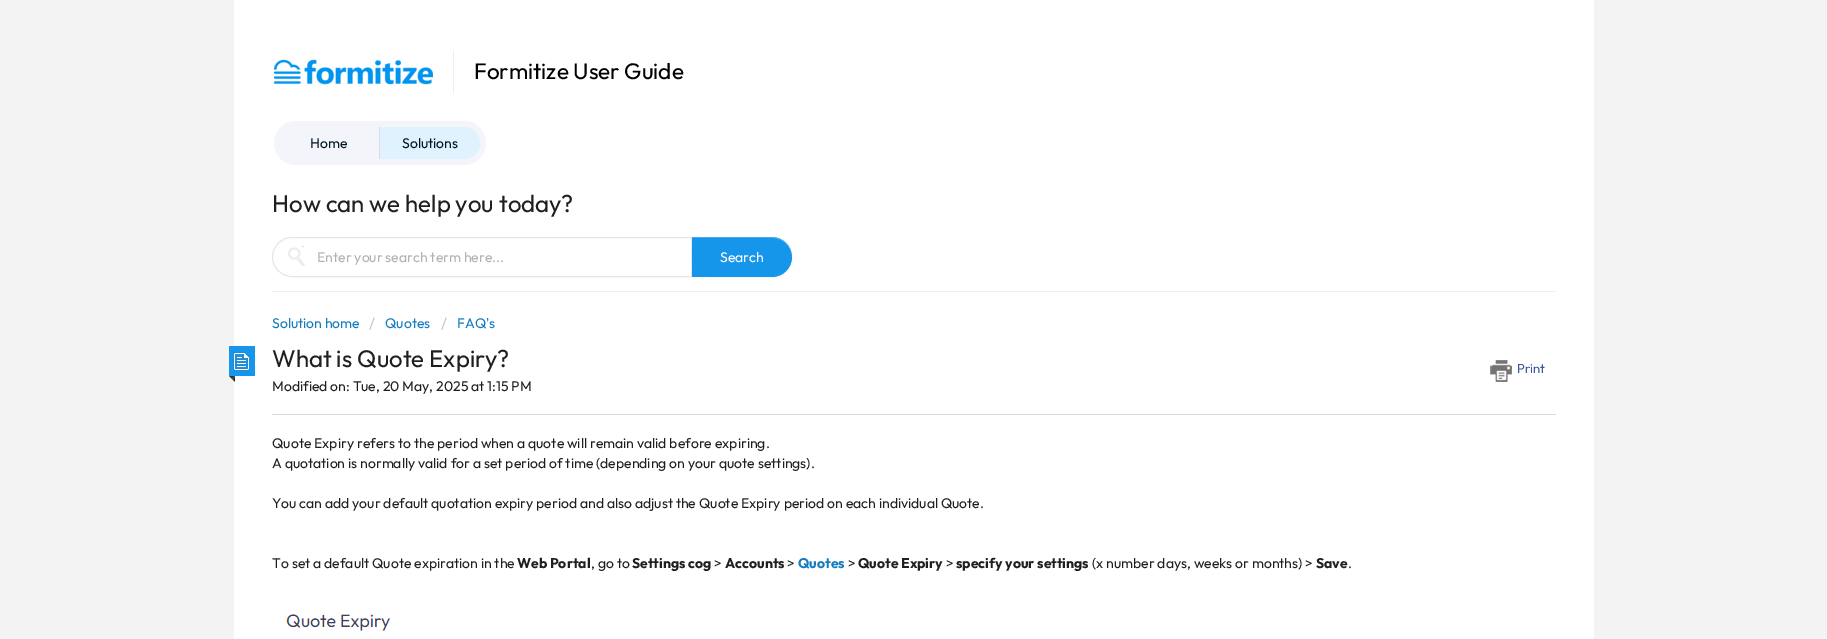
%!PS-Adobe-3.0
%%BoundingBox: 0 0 1827 639
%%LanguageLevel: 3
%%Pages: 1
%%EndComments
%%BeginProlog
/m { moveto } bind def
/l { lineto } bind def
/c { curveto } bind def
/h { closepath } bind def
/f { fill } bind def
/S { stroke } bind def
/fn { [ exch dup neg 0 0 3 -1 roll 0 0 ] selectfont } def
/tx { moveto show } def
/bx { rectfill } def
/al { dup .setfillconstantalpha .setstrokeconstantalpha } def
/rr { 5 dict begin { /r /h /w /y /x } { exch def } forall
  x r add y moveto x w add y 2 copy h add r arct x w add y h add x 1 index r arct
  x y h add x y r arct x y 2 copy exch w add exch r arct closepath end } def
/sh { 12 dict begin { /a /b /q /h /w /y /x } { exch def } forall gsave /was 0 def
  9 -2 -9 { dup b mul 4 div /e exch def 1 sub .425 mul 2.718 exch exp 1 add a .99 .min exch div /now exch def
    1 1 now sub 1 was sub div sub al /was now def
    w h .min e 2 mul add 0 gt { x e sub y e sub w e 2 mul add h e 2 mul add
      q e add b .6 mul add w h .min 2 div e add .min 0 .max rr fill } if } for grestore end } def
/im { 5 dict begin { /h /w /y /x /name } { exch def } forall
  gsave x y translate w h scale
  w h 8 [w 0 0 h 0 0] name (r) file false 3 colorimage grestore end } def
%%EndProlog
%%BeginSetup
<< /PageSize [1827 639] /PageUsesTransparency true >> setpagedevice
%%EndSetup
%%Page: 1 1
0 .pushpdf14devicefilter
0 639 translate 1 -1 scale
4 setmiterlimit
0.953 setgray
0 0 1827 639 bx
1 setgray
234 0 1360 639 bx
(image0.raw) 274 59 159 26 im
0.937 setgray
453 50 1 44 bx
/Outfit-Regular 22.5 fn
0 setgray
(Formitize User Guide) 474 79 tx
0.957 0.961 0.98 setrgbcolor
274 121 212 44 22 rr f
0.863 0.867 0.882 setrgbcolor
379 127 1 32 bx
/Outfit-Regular 14 fn
0 0.086 0.137 setrgbcolor
(Home) 310 148 tx
0.878 0.949 0.992 setrgbcolor
380 127 m 464 127 l 473 127 480 134 480 143 c 480 152 473 159 464 159 c 380 159 l h f
0 0.086 0.137 setrgbcolor
(Solutions) 402 148 tx
0.937 setgray
272 291 1284 1 bx
/Outfit-Regular 24 fn
0.122 setgray
(How can we help you today?) 272 212 tx
0.902 setgray
292 237.5 m 691.5 237.5 l 691.5 276.5 l 292 276.5 l 281 276.5 272.5 268 272.5 257 c 272.5 246 281 237.5 292 237.5 c h S
(image1.raw) 288 246 17 20 im
/Outfit-Regular 14 fn
0.698 setgray
(Enter your search term here...) 317 262 tx
0 setgray
692 238 100 40 20 1 0.05 sh
0.086 0.588 0.918 setrgbcolor
692 237 m 772 237 l 783 237 792 246 792 257 c 792 268 783 277 772 277 c 692 277 l h f
0.2 al
1 setgray
692 238 m 772 238 l 783 238 792 247 792 258 c 792 257 l 792 246 783 237 772 237 c 692 237 l h f
1 al
(Search) 720 262 tx
0.075 0.482 0.749 setrgbcolor
(Solution home) 272 328 tx
/Outfit-Light 16 fn
0.733 setgray
(/) 369 329 tx
/Outfit-Regular 14 fn
0.075 0.482 0.749 setrgbcolor
(Quotes) 385 328 tx
/Outfit-Light 16 fn
0.733 setgray
(/) 441 329 tx
/Outfit-Regular 14 fn
0.075 0.482 0.749 setrgbcolor
(FAQ's) 457 328 tx
0.086 0.588 0.918 setrgbcolor
229 346 26 30 bx
(image2.raw) 233 352 16 18 im
0.2 setgray
229 376 m 235 376 l 232 379 l h f
235 376 m 235 382 l 232 379 l h f
/Outfit-Regular 24 fn
0.122 setgray
(What is Quote Expiry?) 272 367 tx
(image3.raw) 1490 360 22 22 im
/Outfit-Regular 13 fn
0.231 0.349 0.596 setrgbcolor
(Print) 1517 373 tx
/Outfit-Regular 14 fn
0.122 setgray
(Modified on: Tue, 20 May, 2025 at 1:15 PM) 272 391 tx
0.863 setgray
272 414 1284 1 bx
0.122 setgray
(Quote Expiry refers to the period when a quote will remain valid before expiring.) 272 448 tx
(A quotation is normally valid for a set period of time \(depending on your quote settings\).) 272 468 tx
(You can add your default quotation expiry period and also adjust the Quote Expiry period on each individual Quote.) 272 508 tx
(To set a default Quote expiration in the) 272 568 tx
/Outfit-Bold 14 fn
(Web Portal) 517 568 tx
/Outfit-Regular 14 fn
(, go to) 591 568 tx
/Outfit-Bold 14 fn
(Settings cog) 632 568 tx
/Outfit-Regular 14 fn
(>) 714 568 tx
/Outfit-Bold 14 fn
(Accounts) 725 568 tx
/Outfit-Regular 14 fn
(>) 787 568 tx
/Outfit-Bold 14 fn
0.075 0.482 0.749 setrgbcolor
(Quotes) 798 568 tx
/Outfit-Regular 14 fn
0.122 setgray
(>) 848 568 tx
/Outfit-Bold 14 fn
(Quote Expiry) 858 568 tx
/Outfit-Regular 14 fn
(>) 946 568 tx
/Outfit-Bold 14 fn
(specify your settings) 956 568 tx
/Outfit-Regular 14 fn
(\(x number days, weeks or months\) >) 1092 568 tx
/Outfit-Bold 14 fn
(Save) 1316 568 tx
/Outfit-Regular 14 fn
(.) 1348 568 tx
(image4.raw) 286 614 105 17 im
.poppdf14devicefilter showpage
%%EOF
